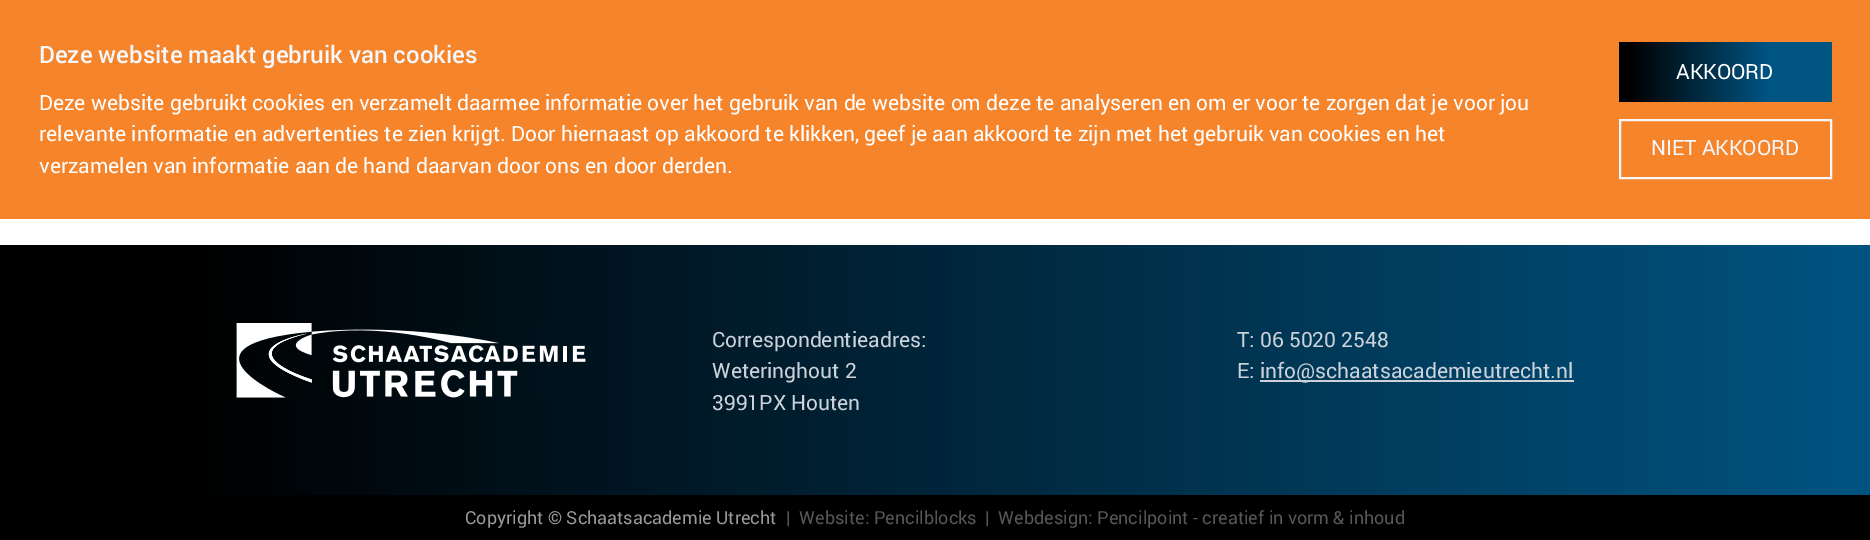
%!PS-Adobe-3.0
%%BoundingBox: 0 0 1870 540
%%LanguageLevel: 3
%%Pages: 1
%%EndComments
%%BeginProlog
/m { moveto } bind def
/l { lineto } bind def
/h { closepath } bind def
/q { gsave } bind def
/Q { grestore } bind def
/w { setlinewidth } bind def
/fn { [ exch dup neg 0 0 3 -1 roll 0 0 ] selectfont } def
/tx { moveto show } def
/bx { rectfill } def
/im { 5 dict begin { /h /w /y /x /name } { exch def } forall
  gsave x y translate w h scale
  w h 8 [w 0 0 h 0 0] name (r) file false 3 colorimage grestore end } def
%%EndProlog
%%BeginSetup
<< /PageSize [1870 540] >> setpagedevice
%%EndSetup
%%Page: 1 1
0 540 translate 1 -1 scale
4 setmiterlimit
1 setgray
0 0 1870 540 bx
0.965 0.518 0.169 setrgbcolor
0 0 1870 219 bx
/Roboto-Medium 24 fn
0.961 0.969 0.98 setrgbcolor
(Deze website maakt gebruik van cookies) 39 63 tx
/Roboto-Regular 21 fn
1 setgray
(Deze website gebruikt cookies en verzamelt daarmee informatie over het gebruik van de website om deze te analyseren en om er voor te zorgen dat je voor jou) 39 110 tx
(relevante informatie en advertenties te zien krijgt. Door hiernaast op akkoord te klikken, geef je aan akkoord te zijn met het gebruik van cookies en het) 39 141 tx
(verzamelen van informatie aan de hand daarvan door ons en door derden.) 39 173 tx
q 1619 42 m 1832 42 l 1832 102 l 1619 102 l h clip newpath
<< /ShadingType 2 /ColorSpace /DeviceRGB /Coords [1619 72 1832 72] /Extend [true true] /Function << /FunctionType 3 /Domain [0 1] /Functions [<< /FunctionType 2 /Domain [0 1] /C0 [0 0 0] /C1 [0 0 0] /N 1 >> << /FunctionType 2 /Domain [0 1] /C0 [0 0 0] /C1 [0 0.329 0.51] /N 1 >> << /FunctionType 2 /Domain [0 1] /C0 [0 0.329 0.51] /C1 [0 0.329 0.51] /N 1 >>] /Bounds [0.05 0.7] /Encode [0 1 0 1 0 1] >> >> shfill Q
(AKKOORD) 1676 79 tx
0.961 0.969 0.98 setrgbcolor
2 w
1620 120 211 58 rectstroke
(NIET AKKOORD) 1651 155 tx
q 0 245 m 1870 245 l 1870 495 l 0 495 l h clip newpath
<< /ShadingType 2 /ColorSpace /DeviceRGB /Coords [0 370 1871 370] /Extend [true true] /Function << /FunctionType 3 /Domain [0 1] /Functions [<< /FunctionType 2 /Domain [0 1] /C0 [0 0 0] /C1 [0 0 0] /N 1 >> << /FunctionType 2 /Domain [0 1] /C0 [0 0 0] /C1 [0 0.329 0.51] /N 1 >>] /Bounds [0.1] /Encode [0 1 0 1] >> >> shfill Q
(image0.raw) 236 323 350 75 im
0.796 0.824 0.851 setrgbcolor
(Correspondentieadres:) 712 347 tx
(Weteringhout 2) 712 378 tx
(3991PX Houten) 712 410 tx
(T: 06 5020 2548) 1237 347 tx
(E:) 1237 378 tx
1260 380 314 2 bx
(info@schaatsacademieutrecht.nl) 1260 378 tx
0 setgray
0 495 1870 45 bx
/Roboto-Regular 18 fn
0.6 setgray
(Copyright © Schaatsacademie Utrecht) 465 524 tx
0.341 setgray
(|  Website: Pencilblocks) 786 524 tx
(|  Webdesign: Pencilpoint - creatief in vorm & inhoud) 985 524 tx
showpage
%%EOF
